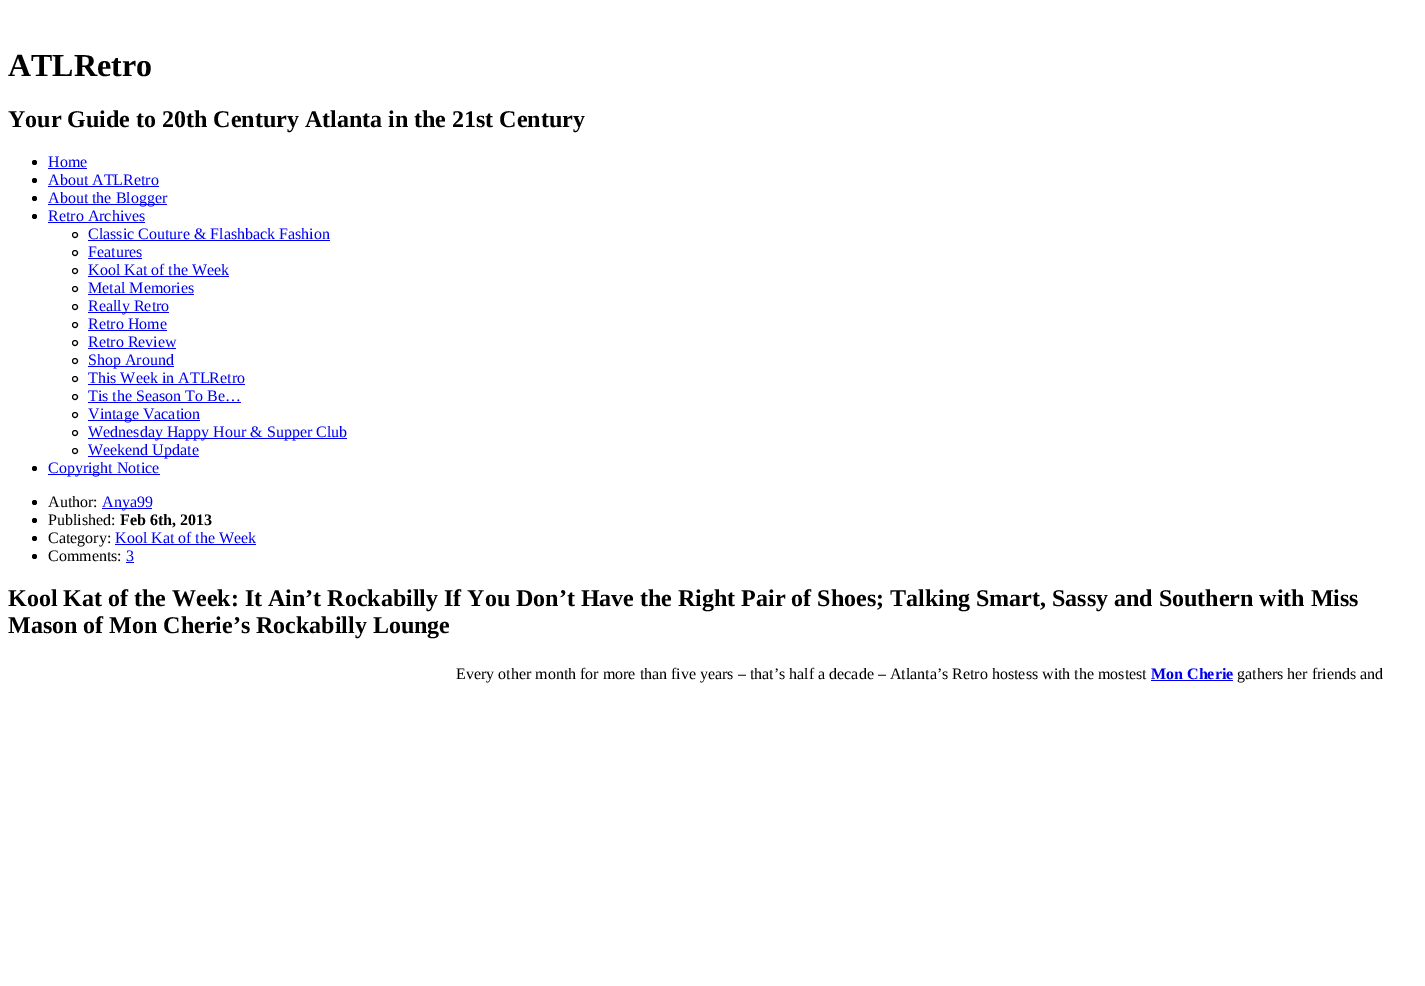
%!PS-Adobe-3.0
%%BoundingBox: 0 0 1425 986
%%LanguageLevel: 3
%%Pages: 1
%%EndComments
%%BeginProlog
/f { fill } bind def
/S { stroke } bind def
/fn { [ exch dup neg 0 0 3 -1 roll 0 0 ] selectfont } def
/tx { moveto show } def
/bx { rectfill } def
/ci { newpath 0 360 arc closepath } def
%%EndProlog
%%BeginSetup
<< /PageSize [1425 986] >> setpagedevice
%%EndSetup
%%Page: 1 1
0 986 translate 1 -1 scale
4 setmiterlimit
1 setgray
0 0 1425 986 bx
/LiberationSerif-Bold 32 fn
0 setgray
(ATLRetro) 8 76 tx
/LiberationSerif-Bold 24 fn
(Your Guide to 20th Century Atlanta in the 21st Century) 8 127 tx
34.5 162.5 2.5 ci f
/LiberationSerif-Regular 16 fn
0 0 0.933 setrgbcolor
(Home) 48 167 tx
48 168 39 1 bx
0 setgray
34.5 180.5 2.5 ci f
0 0 0.933 setrgbcolor
(About ATLRetro) 48 185 tx
48 186 111 1 bx
0 setgray
34.5 198.5 2.5 ci f
0 0 0.933 setrgbcolor
48 204 119 1 bx
(About the Blogger) 48 203 tx
0 setgray
34.5 216.5 2.5 ci f
0 0 0.933 setrgbcolor
(Retro Archives) 48 221 tx
48 222 97 1 bx
0 setgray
75 235 2.5 ci S
0 0 0.933 setrgbcolor
(Classic Couture & Flashback Fashion) 88 239 tx
88 240 242 1 bx
0 setgray
75 253 2.5 ci S
0 0 0.933 setrgbcolor
(Features) 88 257 tx
88 258 54 1 bx
0 setgray
75 271 2.5 ci S
0 0 0.933 setrgbcolor
(Kool Kat of the Week) 88 275 tx
88 276 141 1 bx
0 setgray
75 289 2.5 ci S
0 0 0.933 setrgbcolor
(Metal Memories) 88 293 tx
88 294 106 1 bx
0 setgray
75 307 2.5 ci S
0 0 0.933 setrgbcolor
88 312 81 1 bx
(Really Retro) 88 311 tx
0 setgray
75 325 2.5 ci S
0 0 0.933 setrgbcolor
(Retro Home) 88 329 tx
88 330 79 1 bx
0 setgray
75 343 2.5 ci S
0 0 0.933 setrgbcolor
(Retro Review) 88 347 tx
88 348 88 1 bx
0 setgray
75 361 2.5 ci S
0 0 0.933 setrgbcolor
88 366 86 1 bx
(Shop Around) 88 365 tx
0 setgray
75 379 2.5 ci S
0 0 0.933 setrgbcolor
(This Week in ATLRetro) 88 383 tx
88 384 157 1 bx
0 setgray
75 397 2.5 ci S
0 0 0.933 setrgbcolor
(Tis the Season To Be…) 88 401 tx
88 402 153 1 bx
0 setgray
75 415 2.5 ci S
0 0 0.933 setrgbcolor
88 420 112 1 bx
(Vintage Vacation) 88 419 tx
0 setgray
75 433 2.5 ci S
0 0 0.933 setrgbcolor
88 438 259 1 bx
(Wednesday Happy Hour & Supper Club) 88 437 tx
0 setgray
75 451 2.5 ci S
0 0 0.933 setrgbcolor
88 456 111 1 bx
(Weekend Update) 88 455 tx
0 setgray
34.5 468.5 2.5 ci f
0 0 0.933 setrgbcolor
48 474 112 1 bx
(Copyright Notice) 48 473 tx
0 setgray
34.5 502.5 2.5 ci f
(Author:) 48 507 tx
0 0 0.933 setrgbcolor
102 508 50 1 bx
(Anya99) 102 507 tx
0 setgray
34.5 520.5 2.5 ci f
(Published:) 48 525 tx
/LiberationSerif-Bold 16 fn
(Feb 6th, 2013) 120 525 tx
34.5 538.5 2.5 ci f
/LiberationSerif-Regular 16 fn
(Category:) 48 543 tx
0 0 0.933 setrgbcolor
(Kool Kat of the Week) 115 543 tx
115 544 141 1 bx
0 setgray
34.5 556.5 2.5 ci f
(Comments:) 48 561 tx
0 0 0.933 setrgbcolor
(3) 126 561 tx
126 562 8 1 bx
/LiberationSerif-Bold 24 fn
0 setgray
(Kool Kat of the Week: It Ain’t Rockabilly If You Don’t Have the Right Pair of Shoes; Talking Smart, Sassy and Southern with Miss) 8 606 tx
(Mason of Mon Cherie’s Rockabilly Lounge) 8 633 tx
/LiberationSerif-Regular 16 fn
(Every other month for more than five years – that’s half a decade – Atlanta’s Retro hostess with the mostest) 456 679 tx
/LiberationSerif-Bold 16 fn
0 0 0.933 setrgbcolor
(Mon Cherie) 1151 679 tx
1151 680 82 1 bx
/LiberationSerif-Regular 16 fn
0 setgray
(gathers her friends and) 1237 679 tx
showpage
%%EOF
